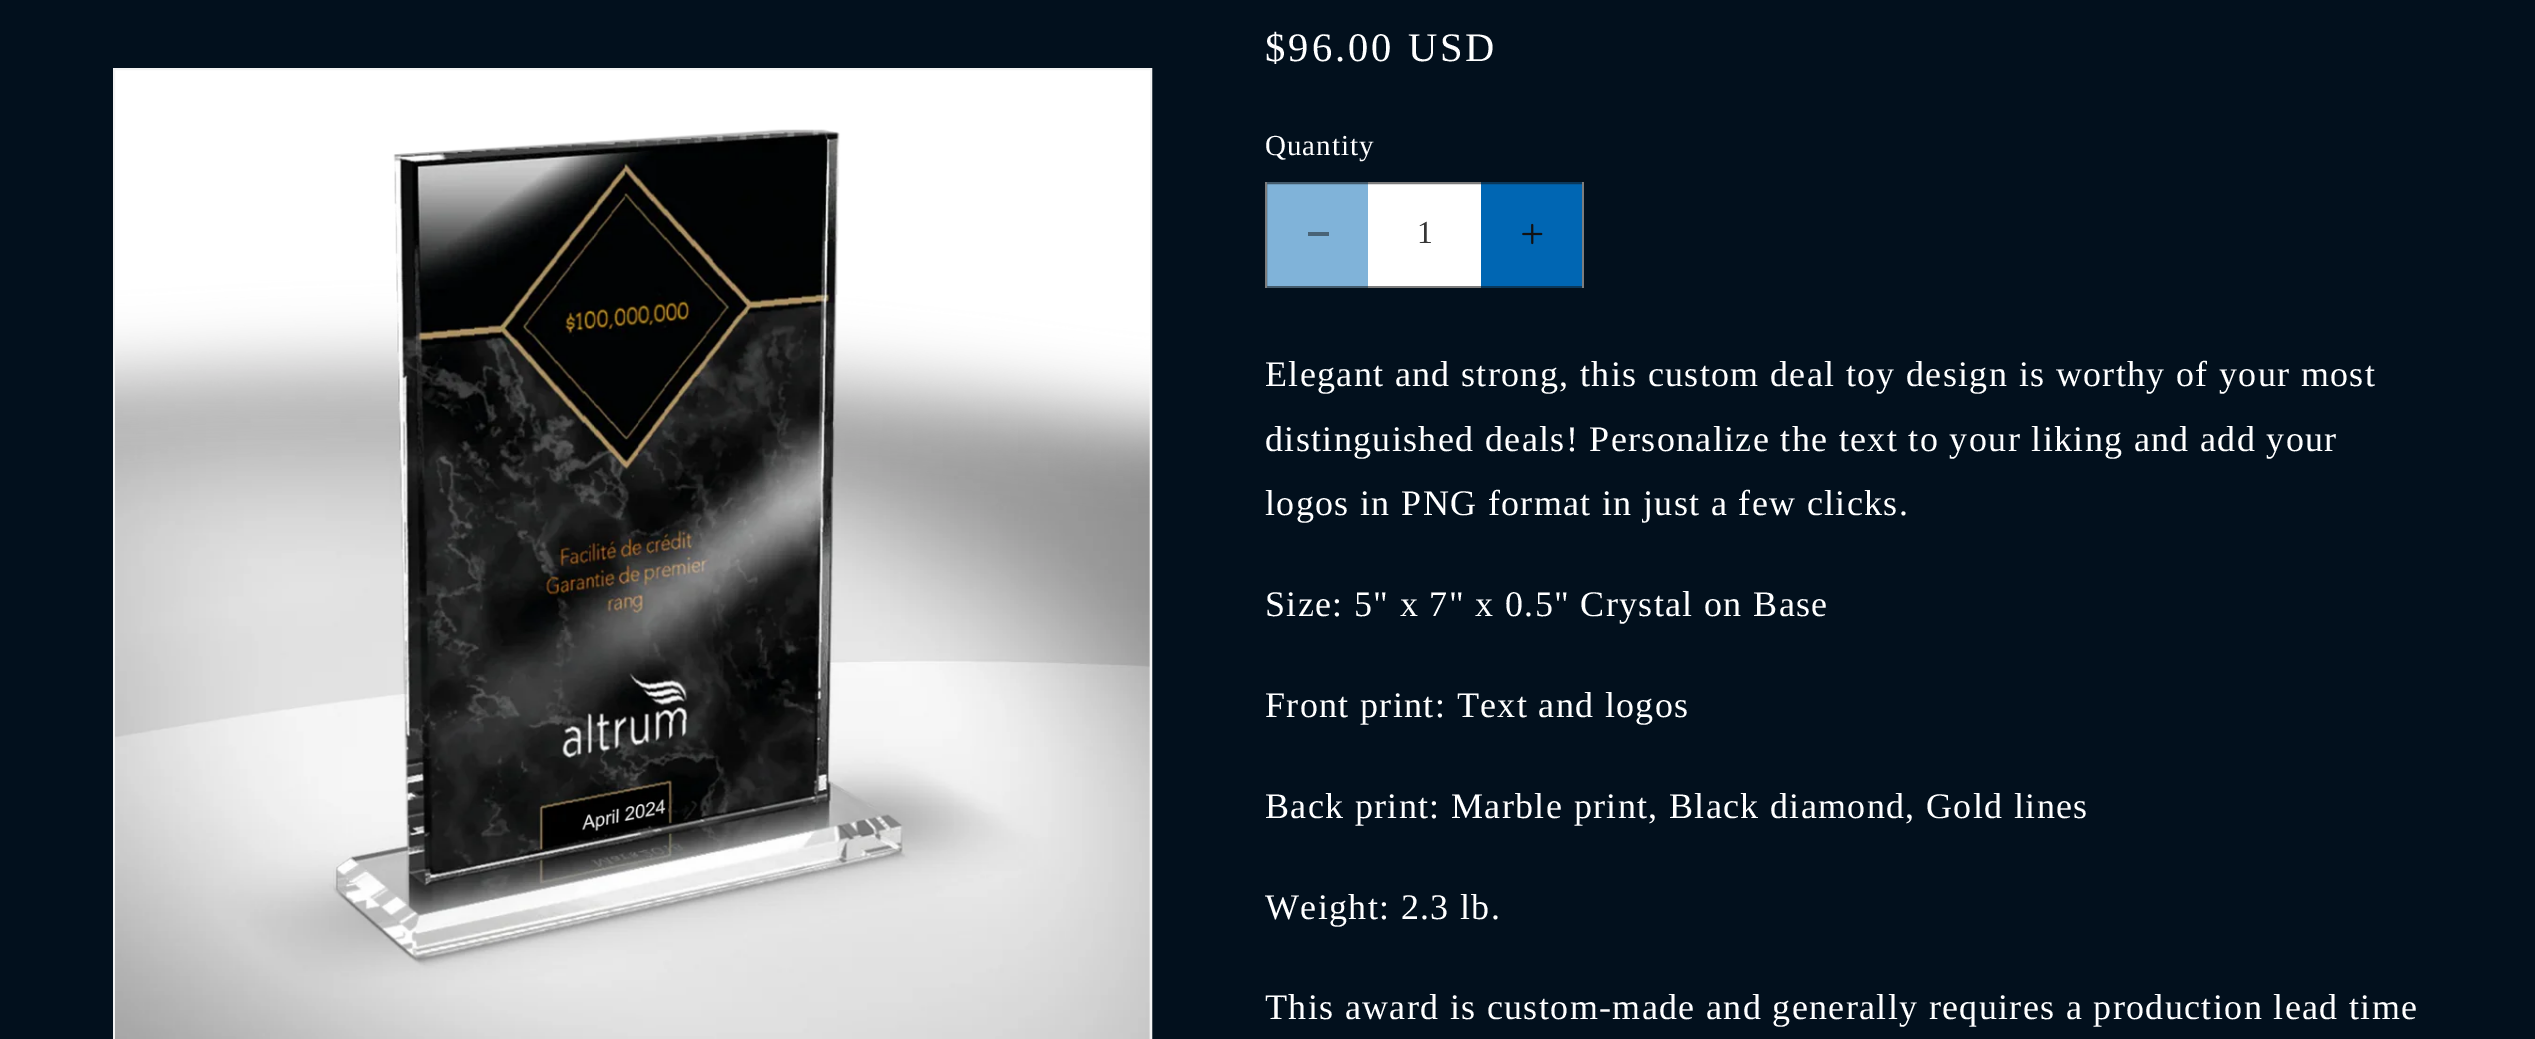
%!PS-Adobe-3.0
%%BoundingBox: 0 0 2535 1039
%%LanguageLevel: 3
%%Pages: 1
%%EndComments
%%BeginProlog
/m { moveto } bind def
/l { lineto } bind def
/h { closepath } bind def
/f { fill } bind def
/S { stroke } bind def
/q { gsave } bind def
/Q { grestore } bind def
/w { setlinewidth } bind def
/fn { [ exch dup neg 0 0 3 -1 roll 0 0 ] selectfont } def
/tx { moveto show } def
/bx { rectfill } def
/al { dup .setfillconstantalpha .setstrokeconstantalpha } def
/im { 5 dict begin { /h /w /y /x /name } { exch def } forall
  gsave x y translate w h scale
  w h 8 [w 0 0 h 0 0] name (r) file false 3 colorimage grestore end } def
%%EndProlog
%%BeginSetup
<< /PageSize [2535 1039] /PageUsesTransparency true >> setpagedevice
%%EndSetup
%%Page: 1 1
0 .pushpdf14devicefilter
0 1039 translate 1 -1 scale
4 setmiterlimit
0.008 0.063 0.114 setrgbcolor
0 0 2535 1039 bx
1 setgray
114 69 m 1151 69 l 1151 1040 l 114 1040 l h q f Q
0.953 setgray
2 w
S
(image0.raw) 115 129 1035 910 im
/LiberationSerif-Regular 40.5 fn
1 setgray
1265 61 m 3 0 ($96.00 USD) ashow
/LiberationSerif-Regular 29 fn
1265 155 m 1 0 (Quantity) ashow
1265 182 319 106 bx
0.502 0.702 0.851 setrgbcolor
1267 182 101 106 bx
0.286 0.388 0.463 setrgbcolor
1308 232 21 4 bx
0 0.4 0.702 setrgbcolor
1481 182 101 106 bx
(image1.raw) 1522 223 21 22 im
0.55 al
0.071 setgray
1266 183 317 104 rectstroke
/LiberationSerif-Regular 32 fn
1 al
0.212 setgray
(1) 1417 243 tx
/LiberationSerif-Regular 36 fn
1 setgray
1265 386 m 1.35 0 (Elegant and strong, this custom deal toy design is worthy of your most) ashow
1265 451 m 1.35 0 (distinguished deals! Personalize the text to your liking and add your) ashow
1265 515 m 1.35 0 (logos in PNG format in just a few clicks.) ashow
1265 616 m 1.35 0 (Size: 5" x 7" x 0.5" Crystal on Base) ashow
1265 717 m 1.35 0 (Front print: Text and logos) ashow
1265 818 m 1.35 0 (Back print: Marble print, Black diamond, Gold lines) ashow
1265 919 m 1.35 0 (Weight: 2.3 lb.) ashow
1265 1019 m 1.35 0 (This award is custom-made and generally requires a production lead time) ashow
.poppdf14devicefilter showpage
%%EOF
